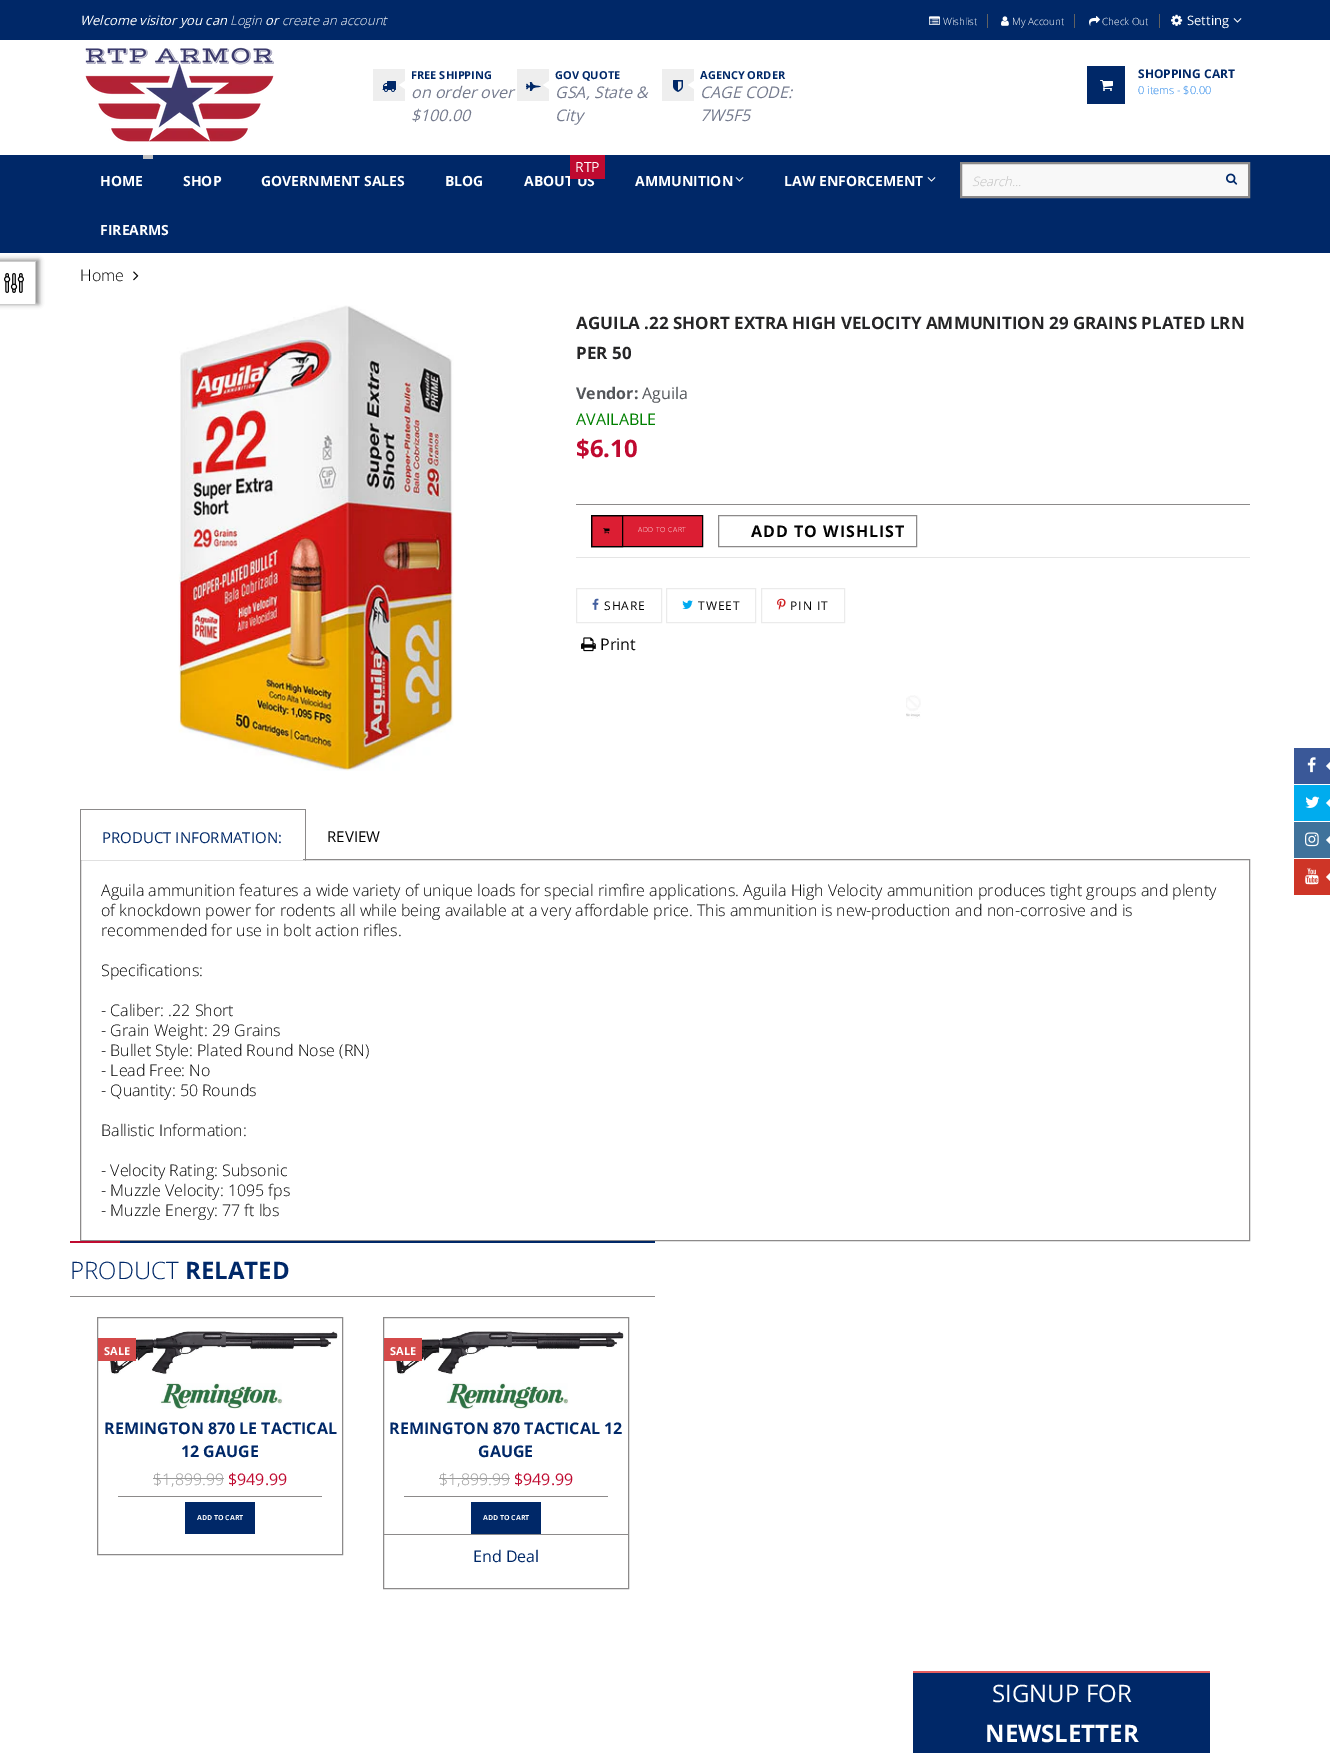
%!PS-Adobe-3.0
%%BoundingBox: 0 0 1330 1753
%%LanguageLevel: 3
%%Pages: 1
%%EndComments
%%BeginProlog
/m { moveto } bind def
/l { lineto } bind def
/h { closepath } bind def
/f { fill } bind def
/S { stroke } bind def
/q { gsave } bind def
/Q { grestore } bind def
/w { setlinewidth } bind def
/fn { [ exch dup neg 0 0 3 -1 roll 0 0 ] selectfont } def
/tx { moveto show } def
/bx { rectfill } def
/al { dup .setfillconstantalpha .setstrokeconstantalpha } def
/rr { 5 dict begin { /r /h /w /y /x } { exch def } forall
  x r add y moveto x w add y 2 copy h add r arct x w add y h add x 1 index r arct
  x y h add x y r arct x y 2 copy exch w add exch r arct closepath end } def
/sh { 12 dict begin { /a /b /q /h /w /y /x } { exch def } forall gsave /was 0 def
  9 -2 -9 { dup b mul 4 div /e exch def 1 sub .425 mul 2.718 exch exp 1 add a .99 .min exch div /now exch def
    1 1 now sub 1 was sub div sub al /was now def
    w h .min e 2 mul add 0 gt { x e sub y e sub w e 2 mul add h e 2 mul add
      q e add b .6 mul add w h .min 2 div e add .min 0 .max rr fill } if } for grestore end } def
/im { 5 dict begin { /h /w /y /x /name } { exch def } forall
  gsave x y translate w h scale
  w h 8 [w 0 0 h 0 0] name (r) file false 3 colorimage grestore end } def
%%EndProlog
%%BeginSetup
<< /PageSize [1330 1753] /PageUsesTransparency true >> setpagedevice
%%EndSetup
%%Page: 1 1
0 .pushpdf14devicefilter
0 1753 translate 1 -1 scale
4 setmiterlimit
1 setgray
0 0 1330 1753 bx
0 0.157 0.408 setrgbcolor
0 155 1330 98 bx
0.533 setgray
-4 260 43 44 0 2.5 1 sh
1 setgray
0 262 35 42 bx
0.8 setgray
0 261 36 1 bx
35 261 1 44 bx
0 304 36 1 bx
(image0.raw) 4 273 20 20 im
0 0.157 0.408 setrgbcolor
0 0 1330 40 bx
/OpenSans-Italic 13 fn
1 setgray
(Welcome visitor you can) 80 25 tx
/OpenSans-LightItalic 13 fn
(Login) 230 25 tx
/OpenSans-Italic 13 fn
(or) 265 25 tx
/OpenSans-LightItalic 13 fn
(create an account) 282 25 tx
0.38 setgray
987 14 1 14 bx
(image1.raw) 929 16 11 9 im
/OpenSans-Light 10 fn
1 setgray
(Wishlist) 943 25 tx
0.38 setgray
1074 14 1 14 bx
(image2.raw) 1001 16 8 10 im
1 setgray
(My Account) 1012 25 tx
0.38 setgray
1159 14 1 14 bx
(image3.raw) 1089 16 11 10 im
1 setgray
(Check Out) 1102 25 tx
(image4.raw) 1171 14 12 12 im
/OpenSans-Regular 13 fn
(Setting) 1187 25 tx
(image5.raw) 1233 18 9 5 im
(image6.raw) 85 47 189 95 im
0.933 setgray
373 69 32 32 bx
(image7.raw) 382 81 14 11 im
1 setgray
405 81 m 405 89 l 399 85 l h f
/OpenSans-Bold 11 fn
0 0.157 0.408 setrgbcolor
(FREE SHIPPING) 411 79 tx
/OpenSans-Italic 16 fn
0.459 0.482 0.557 setrgbcolor
(on order over) 411 98 tx
($100.00) 411 121 tx
0.933 setgray
517 69 32 32 bx
(image8.raw) 526 82 15 9 im
1 setgray
549 81 m 549 89 l 543 85 l h f
/OpenSans-Bold 11 fn
0 0.157 0.408 setrgbcolor
(GOV QUOTE) 555 79 tx
/OpenSans-Italic 16 fn
0.459 0.482 0.557 setrgbcolor
(GSA, State &) 555 98 tx
(City) 555 121 tx
0.933 setgray
662 69 32 32 bx
(image9.raw) 673 80 10 12 im
1 setgray
694 81 m 694 89 l 688 85 l h f
/OpenSans-Bold 11 fn
0 0.157 0.408 setrgbcolor
(AGENCY ORDER) 700 79 tx
/OpenSans-Italic 16 fn
0.459 0.482 0.557 setrgbcolor
(CAGE CODE:) 700 98 tx
(7W5F5) 700 121 tx
0 0.157 0.408 setrgbcolor
1087 66 38 38 bx
(image10.raw) 1100 80 13 11 im
/OpenSans-Bold 12 fn
(SHOPPING CART) 1138 78 tx
/OpenSans-Light 11 fn
0.118 0.506 0.91 setrgbcolor
(0 items - $0.00) 1138 94 tx
0.973 setgray
961 163 m 1249 163 l 1249 197 l 961 197 l h q f Q
0.549 0.541 0.541 setrgbcolor
2 w
S
/OpenSans-LightItalic 13 fn
0.749 setgray
(Search...) 972 186 tx
(image11.raw) 1226 173 12 12 im
0.761 setgray
143 155 10 4 bx
/OpenSans-Bold 14 fn
1 setgray
(HOME) 100 186 tx
(SHOP) 183 186 tx
(GOVERNMENT SALES) 261 186 tx
(BLOG) 445 186 tx
(ABOUT US) 524 186 tx
0.749 0.039 0.188 setrgbcolor
570 155 35 24 bx
/OpenSans-Regular 14 fn
1 setgray
(RTP) 575 172 tx
/OpenSans-Bold 14 fn
(AMMUNITION) 635 186 tx
(image5.raw) 735 177 9 5 im
(LAW ENFORCEMENT) 784 186 tx
(image5.raw) 927 177 9 5 im
(FIREARMS) 100 235 tx
/OpenSans-Light 16 fn
0.012 setgray
(Home) 80 281 tx
(image12.raw) 133 271 6 10 im
(image13.raw) 178 305 276 466 im
/OpenSans-Bold 17 fn
0.149 0.149 0.153 setrgbcolor
(AGUILA .22 SHORT EXTRA HIGH VELOCITY AMMUNITION 29 GRAINS PLATED LRN) 576 329 tx
(PER 50) 576 359 tx
/OpenSans-Bold 16 fn
0.325 0.337 0.353 setrgbcolor
(Vendor:) 576 399 tx
/OpenSans-Regular 16 fn
(Aguila) 642 399 tx
0 0.502 0 setrgbcolor
(AVAILABLE) 576 425 tx
/OpenSans-Bold 24 fn
0.749 0.039 0.188 setrgbcolor
($6.10) 576 457 tx
0.549 0.541 0.541 setrgbcolor
576 504 674 1 bx
0.863 0.118 0.2 setrgbcolor
591.5 515.5 m 702.5 515.5 l 702.5 546.5 l 591.5 546.5 l h q f Q
0 setgray
1 w
S
591.5 515.5 31 31 rectstroke
(image14.raw) 603 528 7 6 im
/OpenSans-Light 7 fn
1 setgray
638 532 m 0.5 0 (ADD TO CART) ashow
0.549 0.541 0.541 setrgbcolor
718.5 515.5 198 31 rectstroke
/OpenSans-Bold 16 fn
0.012 setgray
751 537 m 1 0 (ADD TO WISHLIST) ashow
0.898 setgray
576 557 674 1 bx
0.922 setgray
576.5 588.5 85 34 rectstroke
(image15.raw) 592 598 7 12 im
/OpenSans-Regular 12 fn
0.012 setgray
604 610 m 1 0 (SHARE) ashow
0.922 setgray
666.5 588.5 89 34 rectstroke
(image16.raw) 682 600 11 9 im
0.012 setgray
698 610 m 1 0 (TWEET) ashow
0.922 setgray
761.5 588.5 83 34 rectstroke
(image17.raw) 777 598 9 12 im
0.012 setgray
790 610 m 1 0 (PIN IT) ashow
(image18.raw) 581 637 15 15 im
/OpenSans-Regular 16 fn
(Print) 600 650 tx
(image19.raw) 906 695 15 24 im
0.549 0.541 0.541 setrgbcolor
80 809 226 1 bx
80.5 859.5 1169 381 rectstroke
306 809 m 306 861 l 305 860 l 305 810 l h f
80 861 m 80 809 l 81 810 l 81 860 l h f
1 setgray
81 859 222 1 bx
/OpenSans-Regular 15 fn
0 0.157 0.408 setrgbcolor
(PRODUCT INFORMATION:) 102 843 tx
0.012 setgray
(REVIEW) 327 842 tx
/OpenSans-Light 16 fn
(Aguila ammunition features a wide variety of unique loads for special rimfire applications. Aguila High Velocity ammunition produces tight groups and plenty) 101 896 tx
(of knockdown power for rodents all while being available at a very affordable price. This ammunition is new-production and non-corrosive and is) 101 916 tx
(recommended for use in bolt action rifles.) 101 936 tx
(Specifications:) 101 976 tx
(- Caliber: .22 Short) 101 1016 tx
(- Grain Weight: 29 Grains) 101 1036 tx
(- Bullet Style: Plated Round Nose \(RN\)) 101 1056 tx
(- Lead Free: No) 101 1076 tx
(- Quantity: 50 Rounds) 101 1096 tx
(Ballistic Information:) 101 1136 tx
(- Velocity Rating: Subsonic) 101 1176 tx
(- Muzzle Velocity: 1095 fps) 101 1196 tx
(- Muzzle Energy: 77 ft lbs) 101 1216 tx
0 0.157 0.408 setrgbcolor
120 1241 535 2 bx
0.749 0.039 0.188 setrgbcolor
70 1241 50 2 bx
/OpenSans-Light 24 fn
0 0.157 0.408 setrgbcolor
(PRODUCT) 70 1279 tx
/OpenSans-Bold 24 fn
(RELATED) 185 1279 tx
0.549 0.541 0.541 setrgbcolor
70 1296 585 1 bx
97.5 1317.5 245 237 rectstroke
(image20.raw) 107 1331 231 78 im
0.831 0.29 0.29 setrgbcolor
98 1338 38 23 bx
/OpenSans-Bold 11 fn
1 setgray
(SALE) 104 1355 tx
/OpenSans-Bold 16 fn
0 0.157 0.408 setrgbcolor
(REMINGTON 870 LE TACTICAL) 104 1434 tx
(12 GAUGE) 181 1457 tx
/OpenSans-Light 16 fn
0.6 setgray
($1,899.99) 153 1485 tx
153 1478 71 1 bx
/OpenSans-Regular 16 fn
0.749 0.039 0.188 setrgbcolor
($949.99) 228 1485 tx
0.549 0.541 0.541 setrgbcolor
118 1496 204 1 bx
0 0.157 0.408 setrgbcolor
185 1502 70 32 bx
/OpenSans-Bold 7 fn
1 setgray
(ADD TO CART) 197 1520 tx
0.549 0.541 0.541 setrgbcolor
383.5 1317.5 245 271 rectstroke
(image21.raw) 393 1331 231 78 im
0.831 0.29 0.29 setrgbcolor
384 1338 38 23 bx
/OpenSans-Bold 11 fn
1 setgray
(SALE) 390 1355 tx
/OpenSans-Bold 16 fn
0 0.157 0.408 setrgbcolor
(REMINGTON 870 TACTICAL 12) 389 1434 tx
(GAUGE) 478 1457 tx
/OpenSans-Light 16 fn
0.6 setgray
($1,899.99) 439 1485 tx
439 1478 71 1 bx
/OpenSans-Regular 16 fn
0.749 0.039 0.188 setrgbcolor
($949.99) 514 1485 tx
0.549 0.541 0.541 setrgbcolor
404 1496 204 1 bx
0 0.157 0.408 setrgbcolor
471 1502 70 32 bx
/OpenSans-Bold 7 fn
1 setgray
(ADD TO CART) 483 1520 tx
0.549 0.541 0.541 setrgbcolor
384 1534 244 1 bx
/OpenSans-Regular 16 fn
0 0.157 0.408 setrgbcolor
(End Deal) 473 1562 tx
0.227 0.345 0.596 setrgbcolor
1294 748 36 36 bx
(image22.raw) 1307 757 9 16 im
1 setgray
1330 762 m 1330 770 l 1326 766 l h f
0 0.675 0.933 setrgbcolor
1294 785 36 36 bx
(image23.raw) 1305 796 15 12 im
1 setgray
1330 799 m 1330 807 l 1326 803 l h f
0.247 0.447 0.608 setrgbcolor
1294 822 36 36 bx
(image24.raw) 1305 832 14 15 im
1 setgray
1330 836 m 1330 844 l 1326 840 l h f
0.808 0.208 0.153 setrgbcolor
1294 859 36 36 bx
(image25.raw) 1305 868 14 17 im
1 setgray
1330 873 m 1330 881 l 1326 877 l h f
0 0.157 0.408 setrgbcolor
913 1673 297 80 bx
0.898 0.369 0.369 setrgbcolor
913 1671 297 2 bx
/OpenSans-Regular 24 fn
1 setgray
(SIGNUP FOR) 992 1702 tx
/OpenSans-Bold 24 fn
(NEWSLETTER) 985 1742 tx
.poppdf14devicefilter showpage
%%EOF
